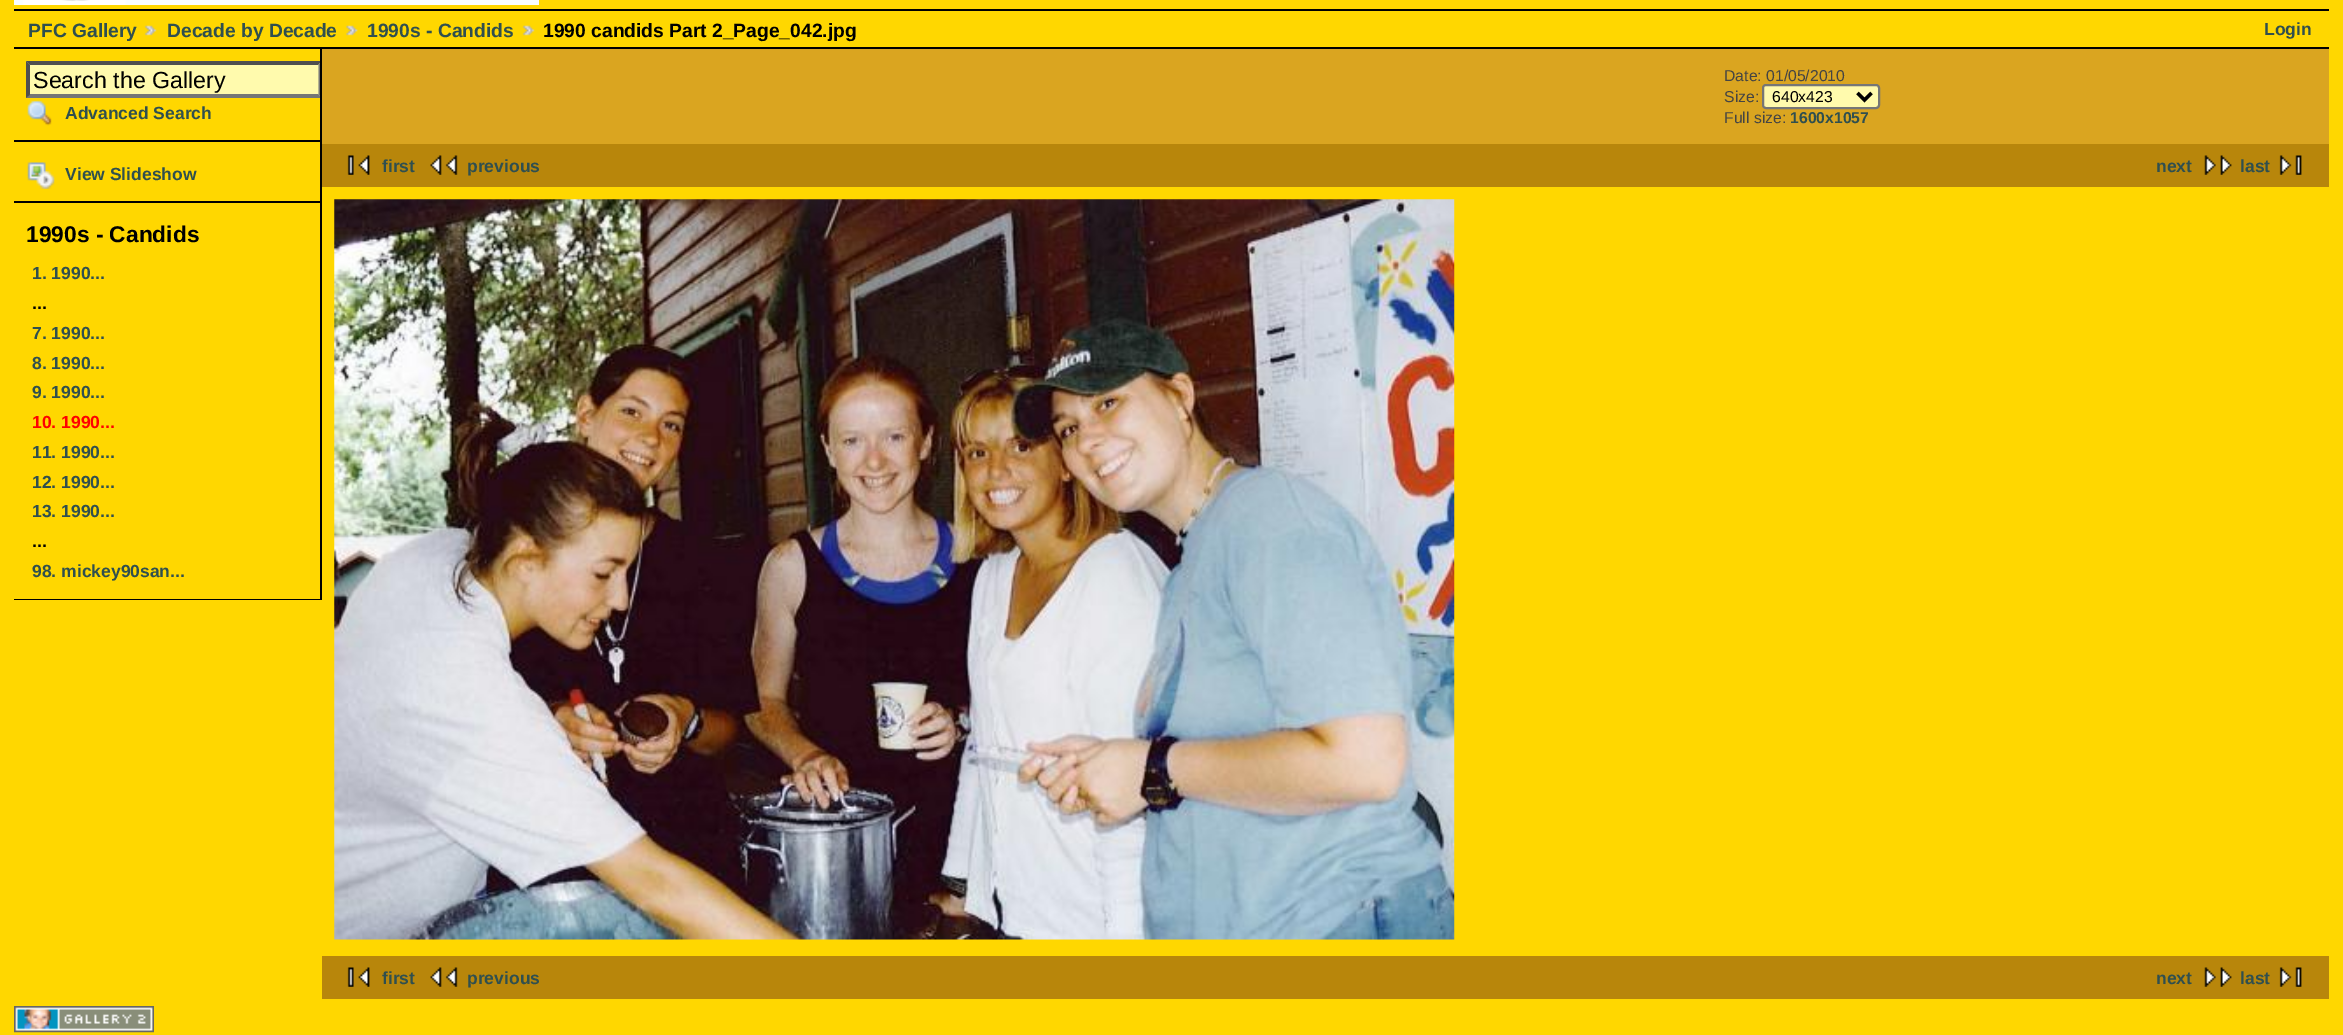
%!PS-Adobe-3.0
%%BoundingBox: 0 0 2343 1035
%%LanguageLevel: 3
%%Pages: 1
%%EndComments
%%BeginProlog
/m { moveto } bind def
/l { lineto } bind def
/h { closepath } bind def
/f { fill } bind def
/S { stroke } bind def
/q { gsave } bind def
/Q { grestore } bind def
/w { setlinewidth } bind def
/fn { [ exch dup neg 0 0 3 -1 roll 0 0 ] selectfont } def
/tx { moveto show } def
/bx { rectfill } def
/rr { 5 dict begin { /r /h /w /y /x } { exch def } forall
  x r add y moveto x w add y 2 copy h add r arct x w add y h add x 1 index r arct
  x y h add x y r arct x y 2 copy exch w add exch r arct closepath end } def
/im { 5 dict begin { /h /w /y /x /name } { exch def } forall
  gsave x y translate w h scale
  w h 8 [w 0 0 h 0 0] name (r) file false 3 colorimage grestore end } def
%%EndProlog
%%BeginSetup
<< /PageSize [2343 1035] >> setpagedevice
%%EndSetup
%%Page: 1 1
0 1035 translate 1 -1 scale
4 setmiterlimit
1 0.843 0 setrgbcolor
0 0 2343 1035 bx
(image0.raw) 14 0 525 5 im
0 setgray
14 9 2315 2 bx
14 47 2315 2 bx
/LiberationSans-Bold 19.25 fn
0.184 0.31 0.31 setrgbcolor
(PFC Gallery) 28 37 tx
(image1.raw) 144 25 13 11 im
(Decade by Decade) 167 37 tx
(image2.raw) 346 25 12 11 im
(1990s - Candids) 367 37 tx
(image1.raw) 522 25 13 11 im
0 setgray
(1990 candids Part 2_Page_042.jpg) 543 37 tx
/LiberationSans-Bold 17.5 fn
0.184 0.31 0.31 setrgbcolor
(Login) 2264 35 tx
0 setgray
320 49 2 551 bx
14 140 306 2 bx
1 0.98 0.678 setrgbcolor
26 61 294 37 bx
q
14 49 306 551 rectclip
0.31 setgray
26 61 m 322 61 l 318 65 l 30 65 l h f
0.463 setgray
322 61 m 322 98 l 318.5 94.5 l 318.5 65 l h f
322 98 m 26 98 l 30 94 l 318 94 l h f
Q
0.31 setgray
26 98 m 26 61 l 30 65 l 30 94.5 l h f
/LiberationSans-Regular 23.25 fn
0 setgray
(Search the Gallery) 33 88 tx
(image3.raw) 27 100 25 26 im
/LiberationSans-Bold 17.5 fn
0.184 0.31 0.31 setrgbcolor
(Advanced Search) 65 119 tx
0 setgray
14 201 306 2 bx
(image4.raw) 27 162 28 27 im
0.184 0.31 0.31 setrgbcolor
(View Slideshow) 65 180 tx
0 setgray
14 599 306 1 bx
/LiberationSans-Bold 22.75 fn
(1990s - Candids) 26 242 tx
/LiberationSans-Bold 17.5 fn
0.184 0.31 0.31 setrgbcolor
(1. 1990...) 32 279 tx
0 setgray
(...) 32 309 tx
0.184 0.31 0.31 setrgbcolor
(7. 1990...) 32 339 tx
(8. 1990...) 32 369 tx
(9. 1990...) 32 398 tx
1 0 0 setrgbcolor
(10. 1990...) 32 428 tx
0.184 0.31 0.31 setrgbcolor
(11. 1990...) 32 458 tx
(12. 1990...) 32 488 tx
(13. 1990...) 32 517 tx
0 setgray
(...) 32 547 tx
0.184 0.31 0.31 setrgbcolor
(98. mickey90san...) 32 577 tx
0.855 0.647 0.125 setrgbcolor
322 49 2007 95 bx
/LiberationSans-Regular 15.75 fn
0.267 setgray
(Date: 01/05/2010) 1724 81 tx
(Size:) 1724 102 tx
1 0.98 0.678 setrgbcolor
1763 85 116 23 3 rr q f Q
0.463 setgray
2 w
S
0 setgray
3.5 w
1857.5 93 m 1864.5 100 l 1871.5 93 l S
(640x423) 1772 102 tx
0.267 setgray
(Full size:) 1724 123 tx
/LiberationSans-Bold 15.75 fn
0.184 0.31 0.31 setrgbcolor
(1600x1057) 1790 123 tx
0.722 0.525 0.043 setrgbcolor
322 144 2007 43 bx
(image5.raw) 347 155 23 20 im
/LiberationSans-Bold 17.5 fn
0.184 0.31 0.31 setrgbcolor
(first) 382 172 tx
(image6.raw) 430 155 28 20 im
(previous) 467 172 tx
(next) 2156 172 tx
(image7.raw) 2204 155 28 20 im
(last) 2240 172 tx
(image8.raw) 2279 155 23 20 im
(image9.raw) 334 199 1121 741 im
0.722 0.525 0.043 setrgbcolor
322 956 2007 43 bx
(image5.raw) 347 967 23 20 im
0.184 0.31 0.31 setrgbcolor
(first) 382 984 tx
(image6.raw) 430 967 28 20 im
(previous) 467 984 tx
(next) 2156 984 tx
(image7.raw) 2204 967 28 20 im
(last) 2240 984 tx
(image8.raw) 2279 967 23 20 im
(image10.raw) 14 1006 140 27 im
showpage
%%EOF
